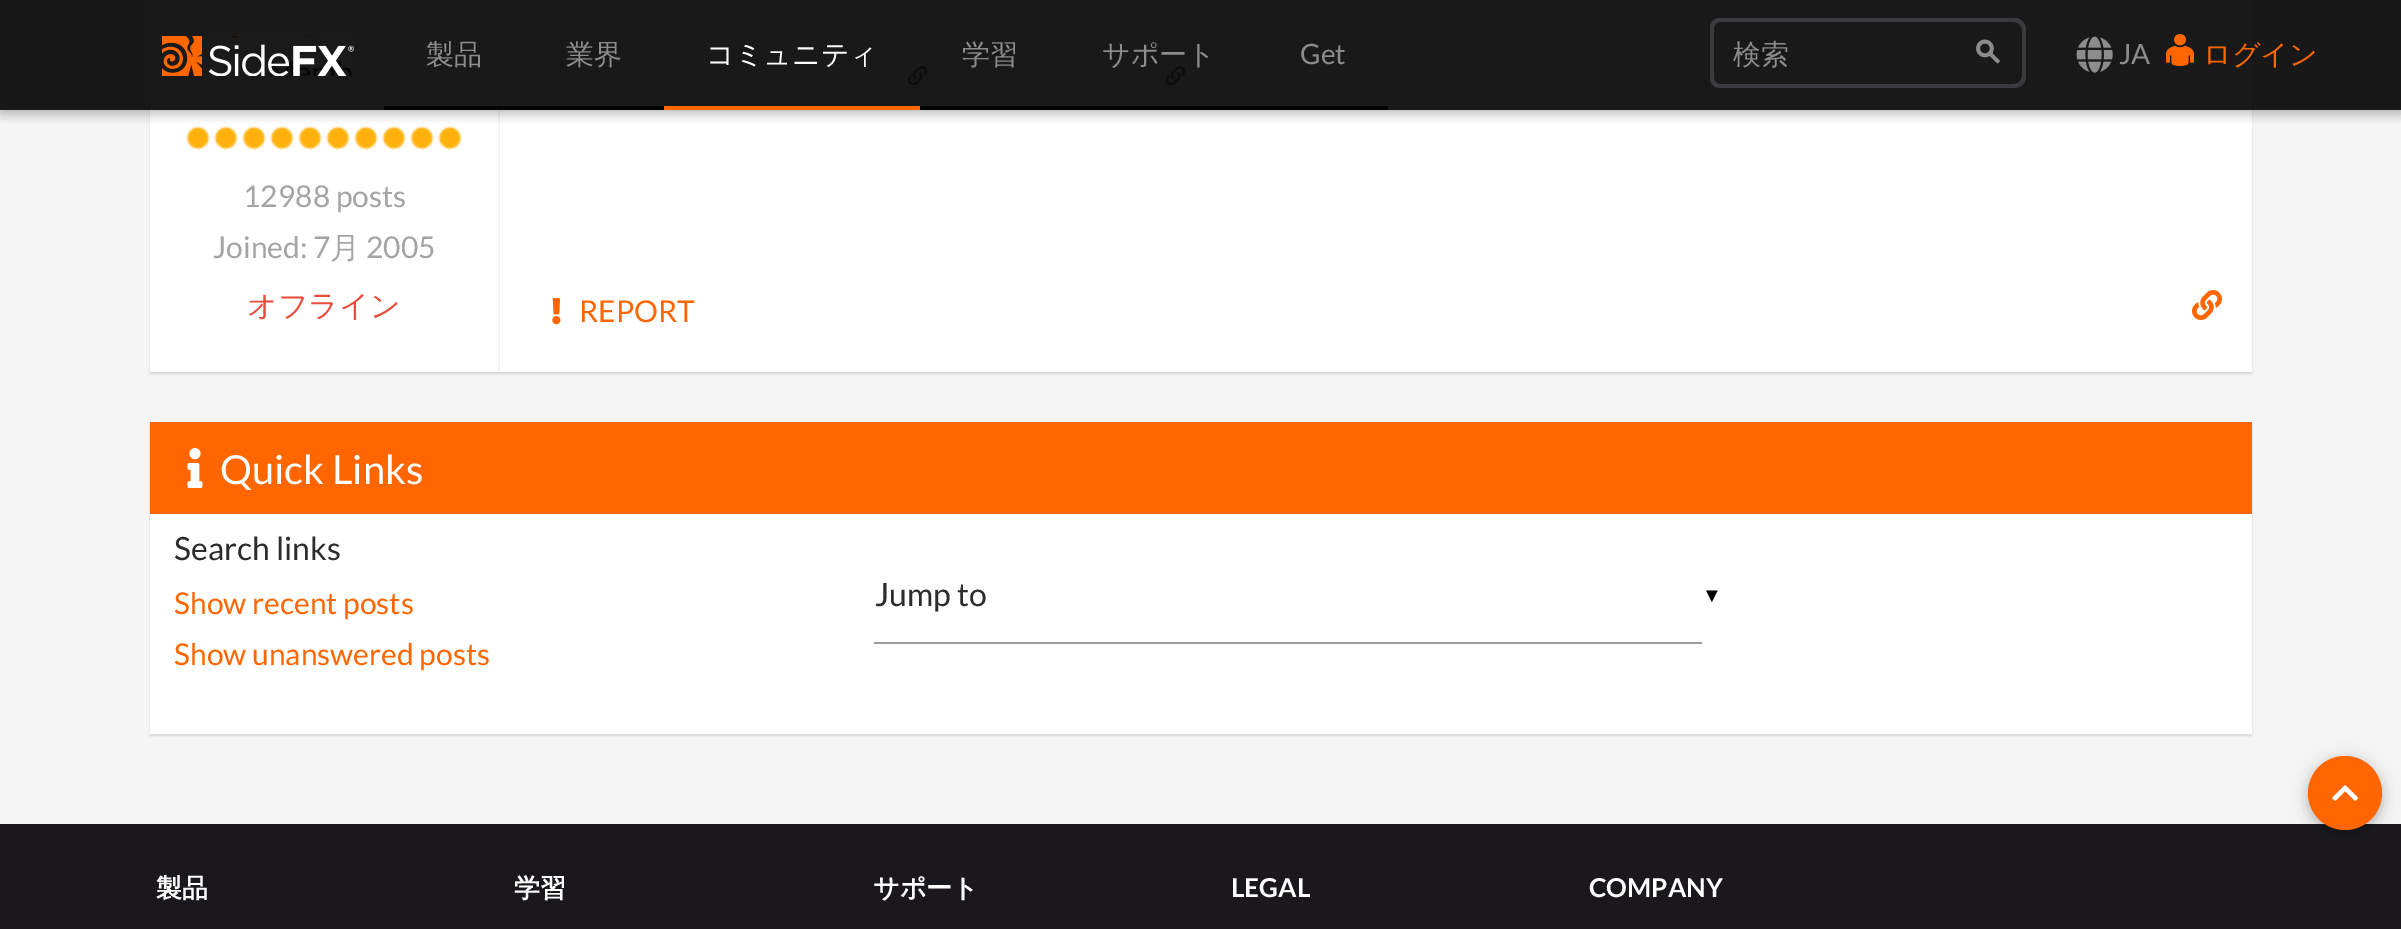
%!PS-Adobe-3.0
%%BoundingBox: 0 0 2401 929
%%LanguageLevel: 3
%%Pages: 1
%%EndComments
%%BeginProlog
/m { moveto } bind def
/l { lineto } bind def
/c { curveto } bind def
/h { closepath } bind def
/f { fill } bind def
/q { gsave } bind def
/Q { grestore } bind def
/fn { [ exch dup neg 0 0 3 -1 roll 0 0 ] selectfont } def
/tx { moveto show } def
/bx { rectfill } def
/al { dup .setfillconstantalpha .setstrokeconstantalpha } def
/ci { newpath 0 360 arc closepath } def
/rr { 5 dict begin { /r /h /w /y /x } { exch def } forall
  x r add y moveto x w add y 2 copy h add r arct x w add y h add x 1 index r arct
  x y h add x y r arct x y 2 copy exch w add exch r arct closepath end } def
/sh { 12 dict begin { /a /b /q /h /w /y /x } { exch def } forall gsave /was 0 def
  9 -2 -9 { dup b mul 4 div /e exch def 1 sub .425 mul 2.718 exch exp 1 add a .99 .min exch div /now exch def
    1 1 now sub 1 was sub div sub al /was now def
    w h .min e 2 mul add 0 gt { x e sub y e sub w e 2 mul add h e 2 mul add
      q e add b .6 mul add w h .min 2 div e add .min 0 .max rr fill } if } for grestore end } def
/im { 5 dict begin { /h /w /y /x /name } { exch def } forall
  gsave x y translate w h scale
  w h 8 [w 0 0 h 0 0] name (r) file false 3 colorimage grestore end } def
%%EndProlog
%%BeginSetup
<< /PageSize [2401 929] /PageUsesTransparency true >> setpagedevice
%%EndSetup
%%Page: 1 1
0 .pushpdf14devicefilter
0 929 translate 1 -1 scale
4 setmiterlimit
0.961 setgray
0 0 2401 929 bx
0 setgray
150 -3 2102 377 0 1 0.12 sh
1 setgray
150 0 2102 372 bx
0.961 setgray
498 0 2 372 bx
(image4.raw) 186 126 276 24 im
(image5.raw) 908 66 20 20 im
(image5.raw) 1166 66 20 20 im
q
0 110 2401 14 rectclip
0 setgray
0 4 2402 110 0 10 0.12 sh
Q
q
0 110 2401 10 rectclip
0 setgray
0 4 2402 110 0 5 0.16 sh
Q
0.9 al
0 setgray
0 0 2401 110 bx
1 al
(image0.raw) 162 36 192 40 im
0.012 setgray
384 106 280 4 bx
/WenQuanYiZenHei-Medium 28 fn
0.549 setgray
(製品) 426 64 tx
(業界) 566 64 tx
1 0.4 0 setrgbcolor
664 106 256 4 bx
1 setgray
(コミュニティ) 706 64 tx
0.012 setgray
920 106 468 4 bx
0.549 setgray
(学習) 962 64 tx
(サポート) 1102 64 tx
/Lato-Regular 28 fn
(Get) 1300 64 tx
0.231 0.227 0.243 setrgbcolor
1720 18 m 1960 18 l 1960 88 l 1720 88 l 1714 88 1710 84 1710 78 c 1710 28 l 1710 22 1714 18 1720 18 c h 1720 22 m 1960 22 l 1960 84 l 1720 84 l 1717 84 1714 81 1714 78 c 1714 28 l 1714 25 1717 22 1720 22 c h eofill
/WenQuanYiZenHei-Medium 28 fn
0.549 setgray
(検索) 1733 64 tx
0.231 0.227 0.243 setrgbcolor
1954 18 m 2014 18 l 2021 18 2026 23 2026 30 c 2026 76 l 2026 83 2021 88 2014 88 c 1954 88 l h 1954 22 m 2014 22 l 2018 22 2022 26 2022 30 c 2022 76 l 2022 80 2018 84 2014 84 c 1954 84 l h eofill
(image1.raw) 1976 39 24 25 im
(image2.raw) 2076 36 37 37 im
/Lato-Regular 28 fn
0.549 setgray
(JA) 2119 64 tx
(image3.raw) 2166 34 28 32 im
/WenQuanYiZenHei-Medium 28 fn
1 0.4 0 setrgbcolor
(ログイン) 2203 64 tx
/Lato-Regular 30 fn
0.643 setgray
(12988 posts) 243 207 tx
(Joined: 7) 213 258 tx
/WenQuanYiZenHei-Medium 30 fn
(月) 330 258 tx
/Lato-Regular 30 fn
(2005) 366 258 tx
/WenQuanYiZenHei-Medium 30 fn
0.906 0.298 0.235 setrgbcolor
(オフライン) 247 316 tx
(image6.raw) 552 298 9 27 im
/Lato-Regular 30 fn
1 0.4 0 setrgbcolor
(REPORT) 579 322 tx
(image7.raw) 2192 290 30 30 im
0 setgray
150 424 2102 312 0 1 0.12 sh
1 setgray
150 514 2102 220 bx
1 0.4 0 setrgbcolor
150 422 2102 92 bx
(image8.raw) 187 448 16 40 im
/Lato-Regular 40 fn
1 setgray
(Quick Links) 220 484 tx
/Lato-Regular 32 fn
0.173 setgray
(Search links) 174 560 tx
/Lato-Regular 30 fn
1 0.4 0 setrgbcolor
(Show recent posts) 174 614 tx
(Show unanswered posts) 174 665 tx
0.62 setgray
874 642 828 2 bx
/Lato-Regular 32 fn
0.173 setgray
(Jump to) 875 606 tx
/LiberationSans-Regular 20 fn
0 setgray
(▼) 1702 602 tx
0.102 0.094 0.114 setrgbcolor
0 824 2401 105 bx
0 setgray
2308 760 74 74 37 10 0.12 sh
2308 760 74 74 37 5 0.16 sh
1 0.4 0 setrgbcolor
2345 793 37 ci f
(image9.raw) 2332 785 26 16 im
/WenQuanYiZenHei-Bold 26 fn
1 setgray
(製品) 156 897 tx
(学習) 514 897 tx
(サポート) 873 897 tx
/Lato-Bold 26 fn
(LEGAL) 1231 897 tx
(COMPANY) 1589 897 tx
.poppdf14devicefilter showpage
%%EOF
